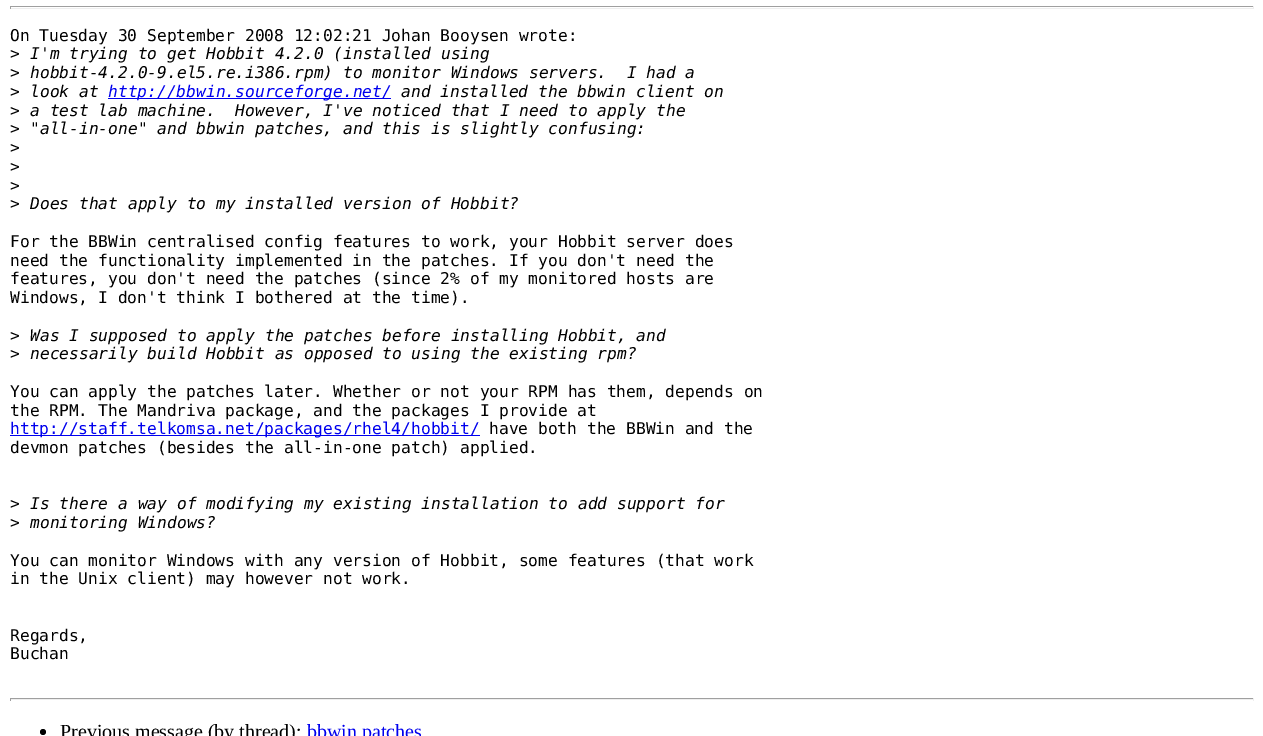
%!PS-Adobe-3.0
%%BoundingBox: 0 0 1263 736
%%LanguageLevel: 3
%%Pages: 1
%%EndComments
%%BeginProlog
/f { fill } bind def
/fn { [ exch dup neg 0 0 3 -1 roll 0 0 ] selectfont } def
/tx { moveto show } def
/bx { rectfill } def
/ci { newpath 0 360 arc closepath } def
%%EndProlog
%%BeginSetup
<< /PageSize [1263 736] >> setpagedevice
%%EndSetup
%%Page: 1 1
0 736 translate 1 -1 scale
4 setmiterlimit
1 setgray
0 0 1263 736 bx
0.624 setgray
10 6 1244 1 bx
0.933 setgray
1253 6 1 3 bx
10 8 1244 1 bx
0.624 setgray
10 6 1 3 bx
/DejaVuSansMono-Regular 16.25 fn
0 setgray
(On Tuesday 30 September 2008 12:02:21 Johan Booysen wrote:) 10 41 tx
(>) 10 59 tx
/DejaVuSansMono-Italic 16.25 fn
(I'm trying to get Hobbit 4.2.0 \(installed using) 30 59 tx
/DejaVuSansMono-Regular 16.25 fn
(>) 10 78 tx
/DejaVuSansMono-Italic 16.25 fn
(hobbit-4.2.0-9.el5.re.i386.rpm\) to monitor Windows servers.  I had a) 30 78 tx
/DejaVuSansMono-Regular 16.25 fn
(>) 10 97 tx
/DejaVuSansMono-Italic 16.25 fn
(look at) 30 97 tx
0 0 0.933 setrgbcolor
108 98 283 1 bx
(http://bbwin.sourceforge.net/) 108 97 tx
0 setgray
(and installed the bbwin client on) 401 97 tx
/DejaVuSansMono-Regular 16.25 fn
(>) 10 116 tx
/DejaVuSansMono-Italic 16.25 fn
(a test lab machine.  However, I've noticed that I need to apply the) 30 116 tx
/DejaVuSansMono-Regular 16.25 fn
(>) 10 134 tx
/DejaVuSansMono-Italic 16.25 fn
("all-in-one" and bbwin patches, and this is slightly confusing:) 30 134 tx
/DejaVuSansMono-Regular 16.25 fn
(>) 10 153 tx
(>) 10 172 tx
(>) 10 191 tx
(>) 10 209 tx
/DejaVuSansMono-Italic 16.25 fn
(Does that apply to my installed version of Hobbit?) 30 209 tx
/DejaVuSansMono-Regular 16.25 fn
(For the BBWin centralised config features to work, your Hobbit server does) 10 247 tx
(need the functionality implemented in the patches. If you don't need the) 10 266 tx
(features, you don't need the patches \(since 2% of my monitored hosts are) 10 284 tx
(Windows, I don't think I bothered at the time\).) 10 303 tx
(>) 10 341 tx
/DejaVuSansMono-Italic 16.25 fn
(Was I supposed to apply the patches before installing Hobbit, and) 30 341 tx
/DejaVuSansMono-Regular 16.25 fn
(>) 10 359 tx
/DejaVuSansMono-Italic 16.25 fn
(necessarily build Hobbit as opposed to using the existing rpm?) 30 359 tx
/DejaVuSansMono-Regular 16.25 fn
(You can apply the patches later. Whether or not your RPM has them, depends on) 10 397 tx
(the RPM. The Mandriva package, and the packages I provide at) 10 416 tx
0 0 0.933 setrgbcolor
10 435 470 1 bx
(http://staff.telkomsa.net/packages/rhel4/hobbit/) 10 434 tx
0 setgray
(have both the BBWin and the) 489 434 tx
(devmon patches \(besides the all-in-one patch\) applied.) 10 453 tx
(>) 10 509 tx
/DejaVuSansMono-Italic 16.25 fn
(Is there a way of modifying my existing installation to add support for) 30 509 tx
/DejaVuSansMono-Regular 16.25 fn
(>) 10 528 tx
/DejaVuSansMono-Italic 16.25 fn
(monitoring Windows?) 30 528 tx
/DejaVuSansMono-Regular 16.25 fn
(You can monitor Windows with any version of Hobbit, some features \(that work) 10 566 tx
(in the Unix client\) may however not work.) 10 584 tx
(Regards,) 10 641 tx
(Buchan) 10 659 tx
0.624 setgray
10 698 1244 1 bx
0.933 setgray
1253 698 1 3 bx
10 699 1244 1 bx
0.624 setgray
10 698 1 3 bx
0 setgray
43 732 3 ci f
/LiberationSerif-Regular 20 fn
(Previous message \(by thread\):) 60 738 tx
0 0 0.933 setrgbcolor
(bbwin patches) 307 738 tx
showpage
%%EOF
